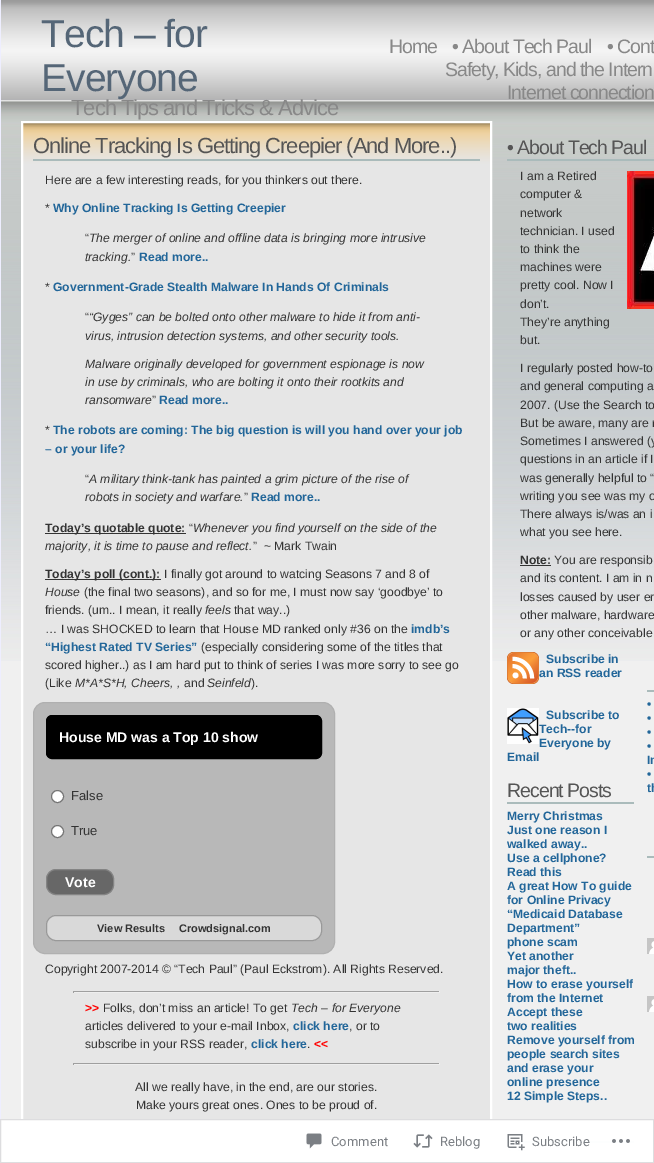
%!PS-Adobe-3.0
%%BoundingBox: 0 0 654 1163
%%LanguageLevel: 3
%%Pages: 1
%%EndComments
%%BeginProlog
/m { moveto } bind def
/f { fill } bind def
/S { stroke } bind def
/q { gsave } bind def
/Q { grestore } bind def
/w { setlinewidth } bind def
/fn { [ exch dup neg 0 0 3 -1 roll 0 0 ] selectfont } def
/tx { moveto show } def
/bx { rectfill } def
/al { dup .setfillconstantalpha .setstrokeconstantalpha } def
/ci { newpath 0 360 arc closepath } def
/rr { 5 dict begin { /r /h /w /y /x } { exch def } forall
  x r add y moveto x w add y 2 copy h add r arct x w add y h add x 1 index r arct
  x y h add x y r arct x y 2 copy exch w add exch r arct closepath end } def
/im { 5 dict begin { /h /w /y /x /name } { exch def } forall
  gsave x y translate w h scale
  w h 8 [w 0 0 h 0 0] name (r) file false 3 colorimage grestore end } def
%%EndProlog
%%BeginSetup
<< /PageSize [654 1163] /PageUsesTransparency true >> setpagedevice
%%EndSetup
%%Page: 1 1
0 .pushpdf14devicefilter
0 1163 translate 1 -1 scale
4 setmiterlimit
0.941 setgray
0 0 654 1163 bx
(image0.raw) 1 0 653 661 im
0.933 0.933 1 setrgbcolor
0 0 1 1163 bx
/LiberationSans-Regular 39 fn
0.333 0.4 0.467 setrgbcolor
41 47 m -1 0 (Tech – for) ashow
41 91 m -1 0 (Everyone) ashow
/LiberationSans-Regular 21.9 fn
0.533 setgray
71 115 m -1 0 (Tech Tips and Tricks & Advice) ashow
/LiberationSans-Regular 19.5 fn
389 53 m -1 0 (Home) ashow
452 53 m -1 0 (• About Tech Paul) ashow
607 53 m -1 0 (• Cont) ashow
445 76 m -1 0 (Safety, Kids, and the Intern) ashow
507 99 m -1 0 (Internet connection) ashow
(image1.raw) 23 123 467 1040 im
1 setgray
2 w
22 122 469 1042 rectstroke
0.667 0.733 0.733 setrgbcolor
33 159 447 2 bx
/LiberationSans-Regular 21.9 fn
0.333 setgray
33 153 m -1 0 (Online Tracking Is Getting Creepier \(And More..\)) ashow
/LiberationSans-Regular 12.15 fn
0.2 setgray
(Here are a few interesting reads, for you thinkers out there.) 45 184 tx
(*) 45 212 tx
/LiberationSans-Bold 12.15 fn
0.133 0.4 0.6 setrgbcolor
(Why Online Tracking Is Getting Creepier) 53 212 tx
/LiberationSans-Regular 12.15 fn
0.2 setgray
(“) 85 242 tx
/LiberationSans-Italic 12.15 fn
(The merger of online and offline data is bringing more intrusive) 89 242 tx
(tracking.) 85 261 tx
/LiberationSans-Regular 12.15 fn
(”) 131 261 tx
/LiberationSans-Bold 12.15 fn
0.133 0.4 0.6 setrgbcolor
(Read more..) 139 261 tx
/LiberationSans-Regular 12.15 fn
0.2 setgray
(*) 45 291 tx
/LiberationSans-Bold 12.15 fn
0.133 0.4 0.6 setrgbcolor
(Government-Grade Stealth Malware In Hands Of Criminals) 53 291 tx
/LiberationSans-Regular 12.15 fn
0.2 setgray
(“) 85 321 tx
/LiberationSans-Italic 12.15 fn
(“Gyges” can be bolted onto other malware to hide it from anti-) 89 321 tx
(virus, intrusion detection systems, and other security tools.) 85 340 tx
(Malware originally developed for government espionage is now) 85 368 tx
(in use by criminals, who are bolting it onto their rootkits and) 85 386 tx
(ransomware) 85 404 tx
/LiberationSans-Regular 12.15 fn
(”) 152 404 tx
/LiberationSans-Bold 12.15 fn
0.133 0.4 0.6 setrgbcolor
(Read more..) 159 404 tx
/LiberationSans-Regular 12.15 fn
0.2 setgray
(*) 45 434 tx
/LiberationSans-Bold 12.15 fn
0.133 0.4 0.6 setrgbcolor
(The robots are coming: The big question is will you hand over your job) 53 434 tx
(– or your life?) 45 453 tx
/LiberationSans-Regular 12.15 fn
0.2 setgray
(“) 85 483 tx
/LiberationSans-Italic 12.15 fn
(A military think-tank has painted a grim picture of the rise of) 89 483 tx
(robots in society and warfare.) 85 501 tx
/LiberationSans-Regular 12.15 fn
(”) 244 501 tx
/LiberationSans-Bold 12.15 fn
0.133 0.4 0.6 setrgbcolor
(Read more..) 251 501 tx
0.2 setgray
45 533 141 1 bx
(Today’s quotable quote:) 45 532 tx
/LiberationSans-Regular 12.15 fn
(“) 189 532 tx
/LiberationSans-Italic 12.15 fn
(Whenever you find yourself on the side of the) 193 532 tx
(majority, it is time to pause and reflect.) 45 550 tx
/LiberationSans-Regular 12.15 fn
(”  ~ Mark Twain) 253 550 tx
45 579 116 1 bx
/LiberationSans-Bold 12.15 fn
(Today’s poll \(cont.\):) 45 578 tx
/LiberationSans-Regular 12.15 fn
(I finally got around to watcing Seasons 7 and 8 of) 164 578 tx
/LiberationSans-Italic 12.15 fn
(House) 45 596 tx
/LiberationSans-Regular 12.15 fn
(\(the final two seasons\), and so for me, I must now say ‘goodbye’ to) 84 596 tx
(friends. \(um.. I mean, it really) 45 614 tx
/LiberationSans-Italic 12.15 fn
(feels) 205 614 tx
/LiberationSans-Regular 12.15 fn
(that way..\)) 234 614 tx
(… I was SHOCKED to learn that House MD ranked only #36 on the) 45 633 tx
/LiberationSans-Bold 12.15 fn
0.133 0.4 0.6 setrgbcolor
(imdb’s) 411 633 tx
(“Highest Rated TV Series”) 45 651 tx
/LiberationSans-Regular 12.15 fn
0.2 setgray
(\(especially considering some of the titles that) 201 651 tx
(scored higher..\) as I am hard put to think of series I was more sorry to see go) 45 669 tx
(\(Like) 45 687 tx
/LiberationSans-Italic 12.15 fn
(M*A*S*H, Cheers, ,) 75 687 tx
/LiberationSans-Regular 12.15 fn
(and) 184 687 tx
/LiberationSans-Italic 12.15 fn
(Seinfeld) 207 687 tx
/LiberationSans-Regular 12.15 fn
(\).) 251 687 tx
0.722 setgray
33.5 702.5 301 251 11.5 rr q f Q
0.69 setgray
1 w
S
0 setgray
46.5 715.5 275 43 5.5 rr q f Q
S
/LiberationSans-Bold 14 fn
1 setgray
(House MD was a Top 10 show) 59 742 tx
57.5 796.5 6 ci q f Q
0.463 setgray
S
/LiberationSans-Regular 13 fn
0.2 setgray
(False) 71 800 tx
1 setgray
57.5 831.5 6 ci q f Q
0.463 setgray
S
0.2 setgray
(True) 71 835 tx
0.404 setgray
46.5 869.5 67 25 9.5 rr q f Q
0.518 setgray
S
/LiberationSans-Bold 14 fn
1 setgray
(Vote) 65 887 tx
0.851 setgray
46.5 915.5 275 25 9.5 rr q f Q
0.6 setgray
S
/LiberationSans-Bold 11 fn
0.2 setgray
(View Results) 97 932 tx
(Crowdsignal.com) 179 932 tx
/LiberationSans-Regular 12.15 fn
(Copyright 2007-2014 © “Tech Paul” \(Paul Eckstrom\). All Rights Reserved.) 45 973 tx
0.624 setgray
73 991 367 1 bx
0.933 setgray
439 991 1 2 bx
73 992 367 1 bx
0.624 setgray
73 991 1 2 bx
/LiberationSans-Bold 12.15 fn
1 0 0 setrgbcolor
(>>) 85 1012 tx
/LiberationSans-Regular 12.15 fn
0.2 setgray
(Folks, don’t miss an article! To get) 103 1012 tx
/LiberationSans-Italic 12.15 fn
(Tech – for Everyone) 291 1012 tx
/LiberationSans-Regular 12.15 fn
(articles delivered to your e-mail Inbox,) 85 1030 tx
/LiberationSans-Bold 12.15 fn
0.133 0.4 0.6 setrgbcolor
(click here) 293 1030 tx
/LiberationSans-Regular 12.15 fn
0.2 setgray
(, or to) 349 1030 tx
(subscribe in your RSS reader,) 85 1048 tx
/LiberationSans-Bold 12.15 fn
0.133 0.4 0.6 setrgbcolor
(click here) 251 1048 tx
/LiberationSans-Regular 12.15 fn
0.2 setgray
(.) 307 1048 tx
/LiberationSans-Bold 12.15 fn
1 0 0 setrgbcolor
(<<) 314 1048 tx
0.624 setgray
73 1063 367 1 bx
0.933 setgray
439 1063 1 2 bx
73 1064 367 1 bx
0.624 setgray
73 1063 1 2 bx
/LiberationSans-Regular 12.15 fn
0.2 setgray
(All we really have, in the end, are our stories.) 135 1091 tx
(Make yours great ones. Ones to be proud of.) 136 1109 tx
0.667 0.733 0.733 setrgbcolor
507 159 147 2 bx
/LiberationSans-Regular 19.5 fn
0.333 setgray
507 154 m -1 0 (• About Tech Paul) ashow
/LiberationSans-Regular 12.15 fn
0.2 setgray
(I am a Retired) 520 180 tx
(image2.raw) 627 171 27 138 im
(computer &) 520 198 tx
(network) 520 217 tx
(technician. I used) 520 235 tx
(to think the) 520 253 tx
(machines were) 520 271 tx
(pretty cool. Now I) 520 289 tx
(don’t.) 520 308 tx
(They’re anything) 520 326 tx
(but.) 520 344 tx
(I regularly posted how-to) 520 372 tx
(and general computing a) 520 390 tx
(2007. \(Use the Search to) 520 409 tx
(But be aware, many are r) 520 427 tx
(Sometimes I answered \(y) 520 445 tx
(questions in an article if I) 520 463 tx
(was generally helpful to “) 520 482 tx
(writing you see was my o) 520 500 tx
(There always is/was an i) 520 518 tx
(what you see here.) 520 536 tx
/LiberationSans-Bold 12.15 fn
(Note:) 520 564 tx
520 565 31 1 bx
/LiberationSans-Regular 12.15 fn
(You are responsib) 554 564 tx
(and its content. I am in n) 520 582 tx
(losses caused by user er) 520 601 tx
(other malware, hardware) 520 619 tx
(or any other conceivable) 520 637 tx
(image3.raw) 507 652 32 32 im
/LiberationSans-Bold 12.15 fn
0.133 0.4 0.6 setrgbcolor
(Subscribe in) 546 663 tx
(an RSS reader) 539 677 tx
(image4.raw) 507 708 32 36 im
(Subscribe to) 546 719 tx
(Tech--for) 539 733 tx
(Everyone by) 539 747 tx
(Email) 507 761 tx
0.667 0.733 0.733 setrgbcolor
507 802 127 2 bx
/LiberationSans-Regular 19.5 fn
0.333 setgray
507 797 m -1 0 (Recent Posts) ashow
/LiberationSans-Bold 12.15 fn
0.133 0.4 0.6 setrgbcolor
(Merry Christmas) 507 820 tx
(Just one reason I) 507 834 tx
(walked away..) 507 848 tx
(Use a cellphone?) 507 862 tx
(Read this) 507 876 tx
(A great How To guide) 507 890 tx
(for Online Privacy) 507 904 tx
(“Medicaid Database) 507 918 tx
(Department”) 507 932 tx
(phone scam) 507 946 tx
(Yet another) 507 960 tx
(major theft..) 507 974 tx
(How to erase yourself) 507 988 tx
(from the Internet) 507 1002 tx
(Accept these) 507 1016 tx
(two realities) 507 1030 tx
(Remove yourself from) 507 1044 tx
(people search sites) 507 1058 tx
(and erase your) 507 1072 tx
(online presence) 507 1086 tx
(12 Simple Steps..) 507 1100 tx
0.667 0.733 0.733 setrgbcolor
507 1141 127 2 bx
647 690 7 2 bx
0.133 0.4 0.6 setrgbcolor
(•) 647 708 tx
(•) 647 722 tx
(•) 647 736 tx
(•) 647 750 tx
(In) 647 764 tx
(•) 647 778 tx
(th) 647 792 tx
0.667 0.733 0.733 setrgbcolor
647 856 7 2 bx
(image5.raw) 647 938 7 16 im
(image5.raw) 647 996 7 16 im
0.98 al
1 setgray
0 1119 654 44 bx
0.863 0.863 0.871 setrgbcolor
0.5 1119.5 653 43 rectstroke
1 al
(image6.raw) 306 1133 16 16 im
/Roboto-Regular 13 fn
0.482 0.498 0.518 setrgbcolor
(Comment) 331 1146 tx
(image7.raw) 413 1134 20 14 im
(Reblog) 440 1146 tx
(image8.raw) 507 1134 18 17 im
(Subscribe) 532 1146 tx
(image9.raw) 612 1139 18 4 im
.poppdf14devicefilter showpage
%%EOF
